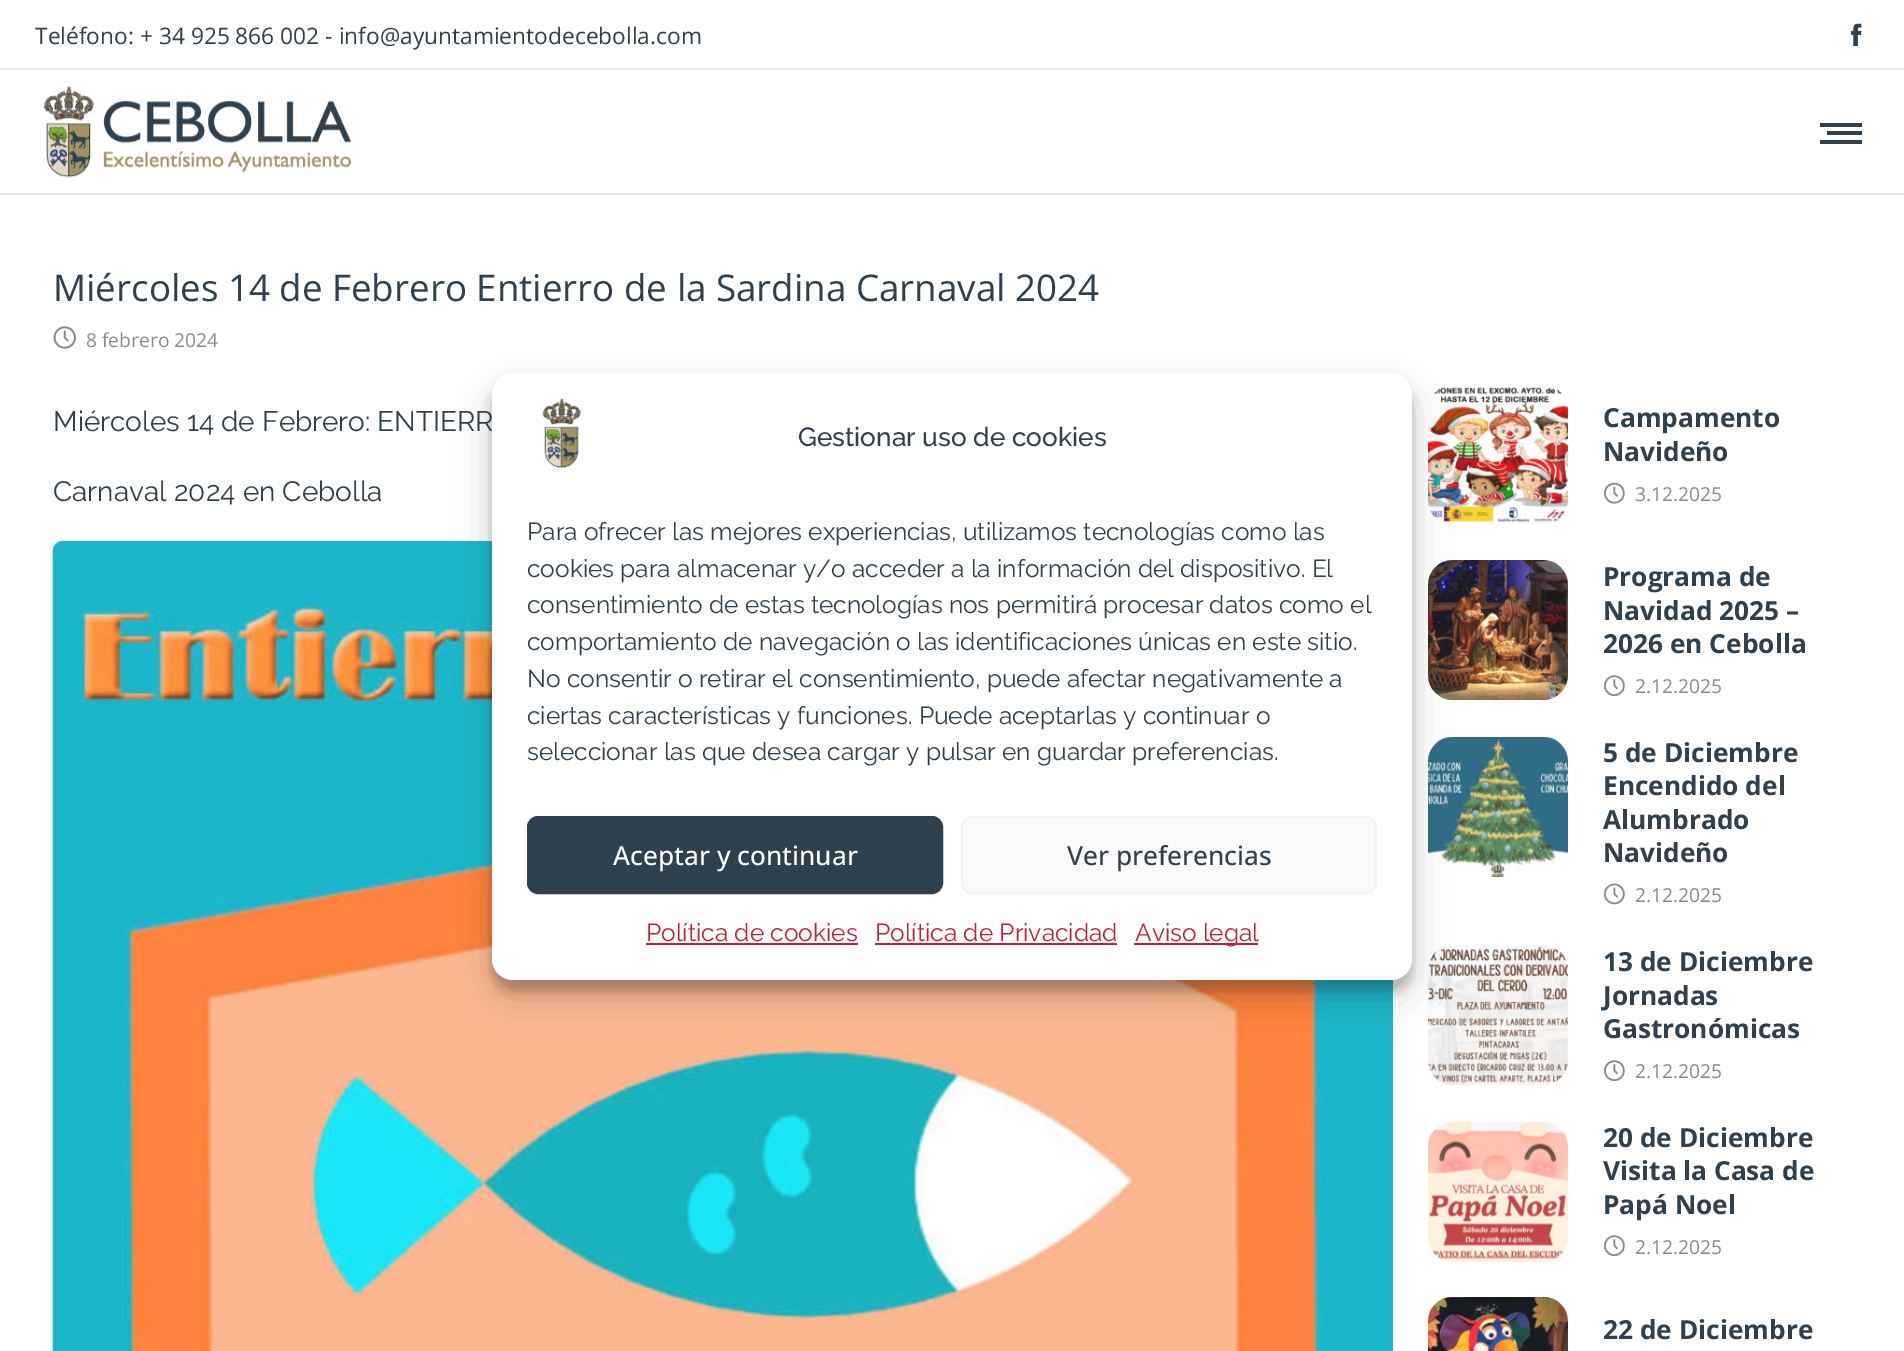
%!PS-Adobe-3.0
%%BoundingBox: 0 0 1904 1351
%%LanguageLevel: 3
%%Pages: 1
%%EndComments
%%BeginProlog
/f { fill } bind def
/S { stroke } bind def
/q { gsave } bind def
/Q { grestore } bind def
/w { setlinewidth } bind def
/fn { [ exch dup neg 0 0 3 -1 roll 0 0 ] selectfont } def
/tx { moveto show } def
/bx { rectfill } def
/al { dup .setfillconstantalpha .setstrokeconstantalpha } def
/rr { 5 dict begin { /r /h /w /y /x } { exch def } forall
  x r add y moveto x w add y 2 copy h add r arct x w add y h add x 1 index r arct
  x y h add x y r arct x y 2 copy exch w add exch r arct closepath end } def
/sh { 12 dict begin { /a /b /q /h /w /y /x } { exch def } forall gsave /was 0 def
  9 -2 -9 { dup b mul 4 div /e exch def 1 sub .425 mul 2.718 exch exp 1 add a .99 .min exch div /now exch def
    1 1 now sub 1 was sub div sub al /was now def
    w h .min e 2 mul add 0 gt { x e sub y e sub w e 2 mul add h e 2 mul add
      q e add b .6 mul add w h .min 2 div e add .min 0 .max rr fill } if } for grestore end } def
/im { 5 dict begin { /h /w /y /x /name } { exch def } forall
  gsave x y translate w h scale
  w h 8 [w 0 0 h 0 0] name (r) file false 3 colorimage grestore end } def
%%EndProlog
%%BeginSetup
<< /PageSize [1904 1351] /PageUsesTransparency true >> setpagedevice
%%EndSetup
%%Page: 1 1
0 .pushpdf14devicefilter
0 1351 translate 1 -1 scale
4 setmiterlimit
1 setgray
0 0 1904 1351 bx
0.914 setgray
0 193 1904 2 bx
0 68 1904 2 bx
/OpenSans-Regular 22.75 fn
0.184 0.251 0.306 setrgbcolor
(Teléfono: + 34 925 866 002 - info@ayuntamientodecebolla.com) 35 44 tx
(image0.raw) 1851 23 11 24 im
(image1.raw) 43 86 308 92 im
1820 123 42 4 bx
1827 131 35 4 bx
1820 140 42 4 bx
/OpenSans-Regular 36.75 fn
(Miércoles 14 de Febrero Entierro de la Sardina Carnaval 2024) 53 301 tx
(image2.raw) 53 326 23 23 im
/OpenSans-Regular 19.25 fn
0.545 setgray
(8 febrero 2024) 86 347 tx
/Raleway-Regular 28 fn
0.184 0.251 0.306 setrgbcolor
(Miércoles 14 de Febrero: ENTIERR) 53 431 tx
(Carnaval 2024 en Cebolla) 53 501 tx
(image3.raw) 52 540 1341 811 im
(image4.raw) 1428 385 140 140 im
/OpenSans-Bold 26.25 fn
(Campamento) 1603 427 tx
(Navideño) 1603 461 tx
(image5.raw) 1604 482 21 22 im
/OpenSans-Regular 19.25 fn
0.545 setgray
(3.12.2025) 1635 501 tx
(image6.raw) 1428 560 140 140 im
/OpenSans-Bold 26.25 fn
0.184 0.251 0.306 setrgbcolor
(Programa de) 1603 586 tx
(Navidad 2025 –) 1603 620 tx
(2026 en Cebolla) 1603 653 tx
(image7.raw) 1604 675 21 22 im
/OpenSans-Regular 19.25 fn
0.545 setgray
(2.12.2025) 1635 693 tx
(image8.raw) 1428 737 140 140 im
/OpenSans-Bold 26.25 fn
0.184 0.251 0.306 setrgbcolor
(5 de Diciembre) 1603 762 tx
(Encendido del) 1603 795 tx
(Alumbrado) 1603 829 tx
(Navideño) 1603 862 tx
(image9.raw) 1604 883 21 22 im
/OpenSans-Regular 19.25 fn
0.545 setgray
(2.12.2025) 1635 902 tx
(image10.raw) 1428 945 140 140 im
/OpenSans-Bold 26.25 fn
0.184 0.251 0.306 setrgbcolor
(13 de Diciembre) 1603 971 tx
(Jornadas) 1603 1005 tx
(Gastronómicas) 1603 1038 tx
(image7.raw) 1604 1060 21 22 im
/OpenSans-Regular 19.25 fn
0.545 setgray
(2.12.2025) 1635 1078 tx
(image11.raw) 1428 1122 140 140 im
/OpenSans-Bold 26.25 fn
0.184 0.251 0.306 setrgbcolor
(20 de Diciembre) 1603 1147 tx
(Visita la Casa de) 1603 1180 tx
(Papá Noel) 1603 1214 tx
(image7.raw) 1604 1235 21 22 im
/OpenSans-Regular 19.25 fn
0.545 setgray
(2.12.2025) 1635 1254 tx
(image12.raw) 1428 1297 140 54 im
/OpenSans-Bold 26.25 fn
0.184 0.251 0.306 setrgbcolor
(22 de Diciembre) 1603 1339 tx
0.09 setgray
492 383 920 608 21 5 0.23 sh
492 390 920 608 21 17.5 0.19 sh
1 setgray
492 373 920 607 21 rr f
(image13.raw) 542 398 39 71 im
/Raleway-Medium 26.25 fn
0.184 0.251 0.306 setrgbcolor
(Gestionar uso de cookies) 798 446 tx
/Raleway-Regular 24.5 fn
(Para ofrecer las mejores experiencias, utilizamos tecnologías como las) 527 540 tx
(cookies para almacenar y/o acceder a la información del dispositivo. El) 527 577 tx
(consentimiento de estas tecnologías nos permitirá procesar datos como el) 527 613 tx
(comportamiento de navegación o las identificaciones únicas en este sitio.) 527 650 tx
(No consentir o retirar el consentimiento, puede afectar negativamente a) 527 687 tx
(ciertas características y funciones. Puede aceptarlas y continuar o) 527 724 tx
(seleccionar las que desea cargar y pulsar en guardar preferencias.) 527 760 tx
528 817 414 76 10 rr q f Q
2 w
S
/OpenSans-Medium 26.25 fn
1 setgray
(Aceptar y continuar) 613 865 tx
0.98 setgray
962 817 414 76 10 rr q f Q
0.953 setgray
S
0.184 0.251 0.306 setrgbcolor
(Ver preferencias) 1067 865 tx
/Raleway-Regular 24.5 fn
0.769 0.122 0.227 setrgbcolor
(Política de cookies) 646 941 tx
646 943 212 2 bx
(Política de Privacidad) 875 941 tx
875 943 242 2 bx
1134 943 124 2 bx
(Aviso legal) 1135 941 tx
.poppdf14devicefilter showpage
%%EOF
